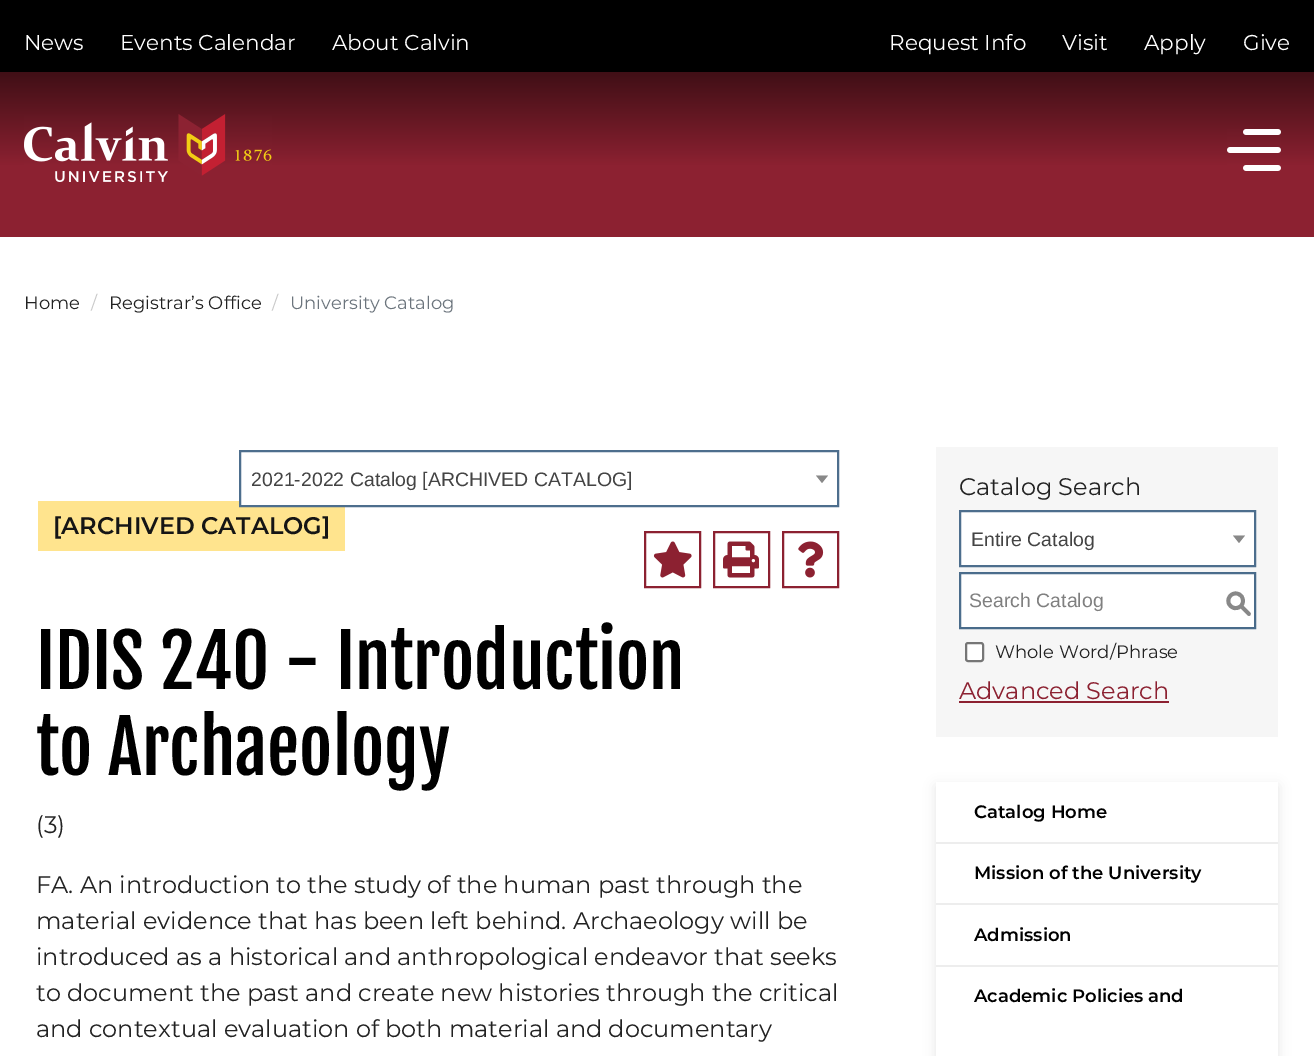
%!PS-Adobe-3.0
%%BoundingBox: 0 0 1314 1056
%%LanguageLevel: 3
%%Pages: 1
%%EndComments
%%BeginProlog
/m { moveto } bind def
/l { lineto } bind def
/h { closepath } bind def
/f { fill } bind def
/S { stroke } bind def
/q { gsave } bind def
/Q { grestore } bind def
/w { setlinewidth } bind def
/fn { [ exch dup neg 0 0 3 -1 roll 0 0 ] selectfont } def
/tx { moveto show } def
/bx { rectfill } def
/al { dup .setfillconstantalpha .setstrokeconstantalpha } def
/rr { 5 dict begin { /r /h /w /y /x } { exch def } forall
  x r add y moveto x w add y 2 copy h add r arct x w add y h add x 1 index r arct
  x y h add x y r arct x y 2 copy exch w add exch r arct closepath end } def
/sh { 12 dict begin { /a /b /q /h /w /y /x } { exch def } forall gsave /was 0 def
  9 -2 -9 { dup b mul 4 div /e exch def 1 sub .425 mul 2.718 exch exp 1 add a .99 .min exch div /now exch def
    1 1 now sub 1 was sub div sub al /was now def
    w h .min e 2 mul add 0 gt { x e sub y e sub w e 2 mul add h e 2 mul add
      q e add b .6 mul add w h .min 2 div e add .min 0 .max rr fill } if } for grestore end } def
/im { 5 dict begin { /h /w /y /x /name } { exch def } forall
  gsave x y translate w h scale
  w h 8 [w 0 0 h 0 0] name (r) file false 3 colorimage grestore end } def
%%EndProlog
%%BeginSetup
<< /PageSize [1314 1056] /PageUsesTransparency true >> setpagedevice
%%EndSetup
%%Page: 1 1
0 .pushpdf14devicefilter
0 1056 translate 1 -1 scale
4 setmiterlimit
1 setgray
0 0 1314 1056 bx
0.549 0.129 0.192 setrgbcolor
0 200 1314 37 bx
0 setgray
0 0 1314 72 bx
/Montserrat-Regular 21.5 fn
1 setgray
(News) 24 50 tx
(Events Calendar) 120 50 tx
(About Calvin) 332 50 tx
(Request Info) 889 50 tx
(Visit) 1062 50 tx
(Apply) 1144 50 tx
(Give) 1243 50 tx
q 0 72 m 1314 72 l 1314 200 l 0 200 l h clip newpath
<< /ShadingType 2 /ColorSpace /DeviceRGB /Coords [657 -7.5 657 199] /Extend [true true] /Function << /FunctionType 3 /Domain [0 1] /Functions [<< /FunctionType 2 /Domain [0 1] /C0 [0 0 0] /C1 [0.549 0.129 0.192] /N 1 >> << /FunctionType 2 /Domain [0 1] /C0 [0.549 0.129 0.192] /C1 [0.549 0.129 0.192] /N 1 >>] /Bounds [0.84] /Encode [0 1 0 1] >> >> shfill Q
(image0.raw) 24 114 248 68 im
(image1.raw) 1227 129 54 42 im
/Montserrat-Regular 18 fn
0.133 setgray
(Home) 24 309 tx
0.788 setgray
(/) 91 309 tx
0.133 setgray
(Registrar’s Office) 109 309 tx
0.788 setgray
(/) 272 309 tx
0.424 0.459 0.49 setrgbcolor
(University Catalog) 290 309 tx
1 0.894 0.557 setrgbcolor
38 501 307 50 bx
1 setgray
241 501 104 4 bx
0.302 0.431 0.553 setrgbcolor
2 w
240 451 598 55 rectstroke
/LiberationSans-Regular 19.5 fn
0.267 setgray
(2021-2022 Catalog [ARCHIVED CATALOG]) 251 486 tx
0.533 setgray
816 475.5 m 828 475.5 l 822 483 l h f
/Montserrat-SemiBold 24 fn
0.082 setgray
([ARCHIVED CATALOG]) 53 534 tx
0.549 0.129 0.192 setrgbcolor
645 532 55 55 rectstroke
(image2.raw) 653 541 39 37 im
714 532 55 55 rectstroke
(image3.raw) 723 541 36 37 im
783 532 55 55 rectstroke
(image4.raw) 798 541 26 37 im
/FjallaOne-Regular 72 fn
0 setgray
(IDIS 240 - Introduction) 36 689 tx
(to Archaeology) 36 775 tx
/Montserrat-Regular 24 fn
0.133 setgray
(\(3\)) 36 833 tx
(FA. An introduction to the study of the human past through the) 36 893 tx
(material evidence that has been left behind. Archaeology will be) 36 929 tx
(introduced as a historical and anthropological endeavor that seeks) 36 965 tx
(to document the past and create new histories through the critical) 36 1001 tx
(and contextual evaluation of both material and documentary) 36 1037 tx
0.965 setgray
936 447 342 290 bx
0.133 setgray
(Catalog Search) 959 495 tx
1 setgray
960 511 m 1255 511 l 1255 566 l 960 566 l h q f Q
0.302 0.431 0.553 setrgbcolor
S
/LiberationSans-Regular 19.5 fn
0.267 setgray
(Entire Catalog) 971 546 tx
0.533 setgray
1233 535.5 m 1245 535.5 l 1239 543 l h f
1 setgray
960 573 294 54 bx
0.7 al
0 0.188 0.361 setrgbcolor
960 573 295 55 rectstroke
1 al
0.502 setgray
(Search Catalog) 969 607 tx
/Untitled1-Medium 27 fn
0.533 setgray
(S) 1225 612 tx
1 setgray
966 643 17 18 2 rr q f Q
0.463 setgray
S
/Montserrat-Regular 18 fn
0.133 setgray
(Whole Word/Phrase) 995 658 tx
/Montserrat-Regular 24 fn
0.549 0.129 0.192 setrgbcolor
(Advanced Search) 959 699 tx
959 701 210 2 bx
q
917 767 m 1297 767 l 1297 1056 l 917 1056 l h 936 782 m 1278 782 l 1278 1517 l 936 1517 l h eoclip newpath
0 setgray
936 786 342 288 0 6 0.1 sh
Q
0.929 setgray
936 842 342 2 bx
/Montserrat-SemiBold 18 fn
0 setgray
(Catalog Home) 974 818 tx
0.929 setgray
936 903 342 2 bx
0 setgray
(Mission of the University) 974 879 tx
0.929 setgray
936 965 342 2 bx
0 setgray
(Admission) 974 941 tx
(Academic Policies and) 974 1002 tx
.poppdf14devicefilter showpage
%%EOF
